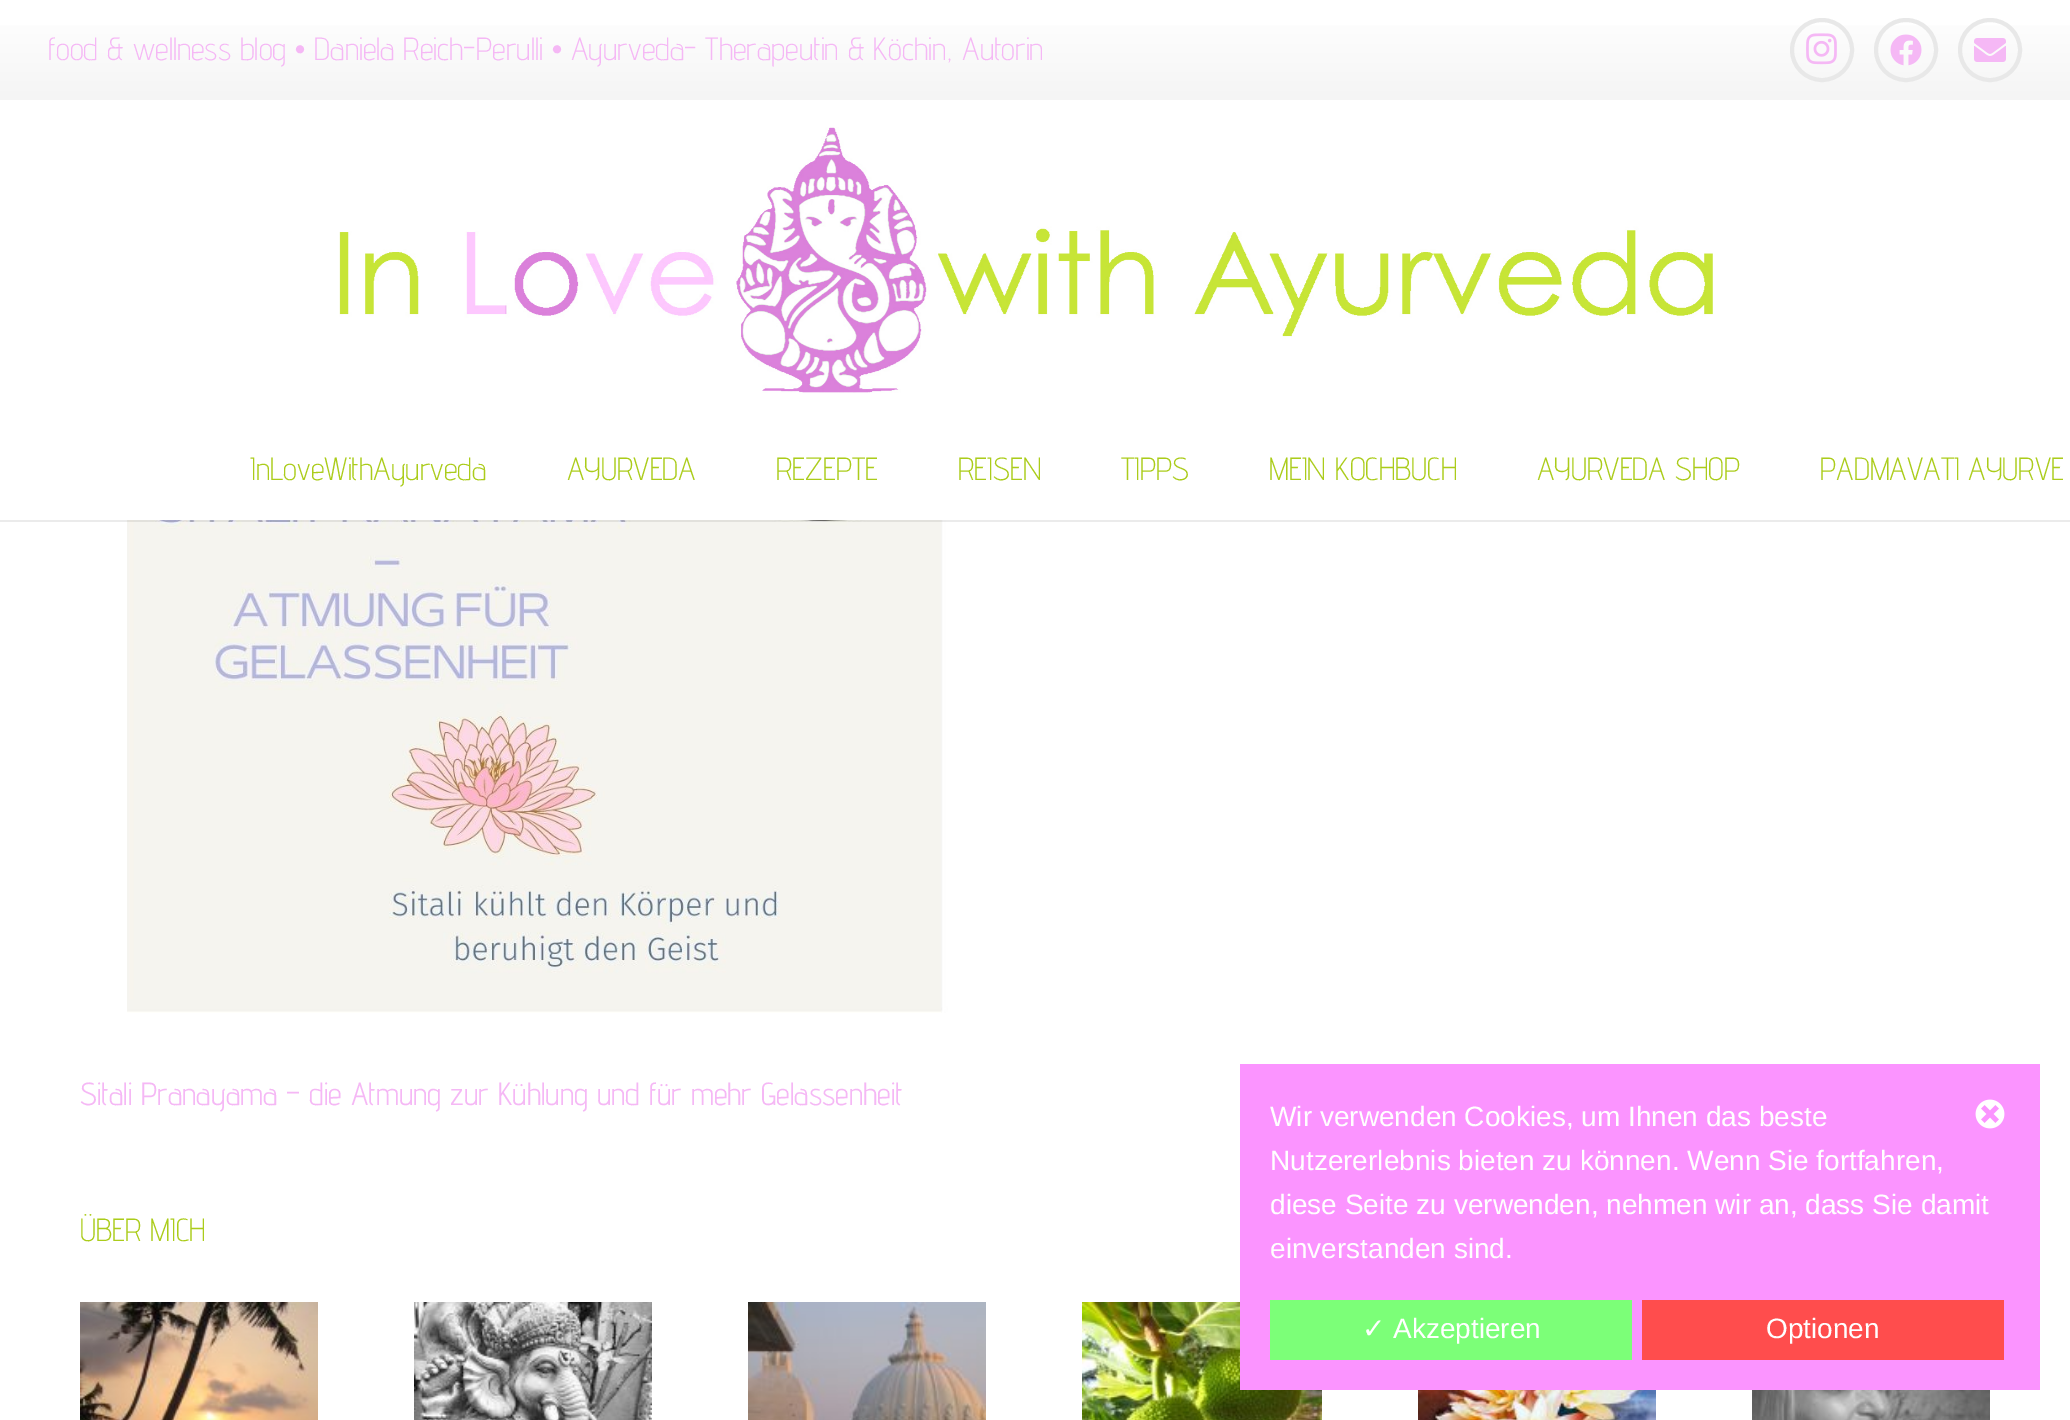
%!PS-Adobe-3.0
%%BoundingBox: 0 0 2070 1420
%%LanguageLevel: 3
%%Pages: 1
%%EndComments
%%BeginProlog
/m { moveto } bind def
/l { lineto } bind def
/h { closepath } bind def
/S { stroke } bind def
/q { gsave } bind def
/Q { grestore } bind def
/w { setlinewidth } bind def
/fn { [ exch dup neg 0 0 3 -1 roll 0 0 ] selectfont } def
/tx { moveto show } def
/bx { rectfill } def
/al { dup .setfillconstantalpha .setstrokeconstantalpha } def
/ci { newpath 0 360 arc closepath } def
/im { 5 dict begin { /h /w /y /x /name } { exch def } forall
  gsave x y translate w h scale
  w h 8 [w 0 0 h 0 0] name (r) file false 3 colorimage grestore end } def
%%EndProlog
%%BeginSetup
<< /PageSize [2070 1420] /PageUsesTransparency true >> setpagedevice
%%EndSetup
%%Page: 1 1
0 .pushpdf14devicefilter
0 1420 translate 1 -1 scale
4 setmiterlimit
1 setgray
0 0 2070 1420 bx
q 0 25 m 2070 25 l 2070 100 l 0 100 l h clip newpath
<< /ShadingType 2 /ColorSpace /DeviceRGB /Coords [1035 100 1035 0] /Extend [true true] /Function << /FunctionType 2 /Domain [0 1] /C0 [0.961 0.961 0.961] /C1 [1 1 1] /N 1 >> >> shfill Q
/AdventPro-Light 32 fn
0.961 0.722 0.961 setrgbcolor
(food & wellness blog • Daniela Reich-Perulli • Ayurveda- Therapeutin & Köchin, Autorin) 48 60 tx
0.91 setgray
4 w
1822 50 30 ci S
(image0.raw) 1806 33 31 32 im
1906 50 30 ci S
(image1.raw) 1890 34 32 32 im
1990 50 30 ci S
(image2.raw) 1974 38 32 24 im
(image3.raw) 339 127 1374 266 im
(image4.raw) 127 520 861 493 im
0.08 al
0 setgray
0 520 2070 2 bx
1 al
0.671 0.8 0.106 setrgbcolor
(InLoveWithAyurveda) 250 480 tx
(AYURVEDA) 567 480 tx
(REZEPTE) 776 480 tx
(REISEN) 958 480 tx
(TIPPS) 1121 480 tx
(MEIN KOCHBUCH) 1269 480 tx
(AYURVEDA SHOP) 1537 480 tx
(PADMAVATI AYURVE) 1820 480 tx
/AdventPro-Regular 32 fn
0.961 0.722 0.961 setrgbcolor
(Sitali Pranayama – die Atmung zur Kühlung und für mehr Gelassenheit) 80 1105 tx
/AdventPro-Light 32 fn
0.671 0.8 0.106 setrgbcolor
(ÜBER MICH) 80 1241 tx
(image5.raw) 80 1302 238 118 im
(image6.raw) 414 1302 238 118 im
(image7.raw) 748 1302 238 118 im
(image8.raw) 1082 1302 240 118 im
(image9.raw) 1418 1390 238 30 im
(image10.raw) 1752 1390 238 30 im
0.984 0.58 1 setrgbcolor
1240 1064 800 326 bx
/LiberationSans-Regular 28 fn
1 setgray
(Wir verwenden Cookies, um Ihnen das beste) 1270 1126 tx
(Nutzererlebnis bieten zu können. Wenn Sie fortfahren,) 1270 1170 tx
(diese Seite zu verwenden, nehmen wir an, dass Sie damit) 1270 1214 tx
(einverstanden sind.) 1270 1258 tx
(image11.raw) 1975 1099 30 30 im
0.486 1 0.471 setrgbcolor
1270 1300 362 60 bx
/DejaVuSans-Regular 28 fn
1 setgray
(✓) 1362 1338 tx
/LiberationSans-Regular 28 fn
(Akzeptieren) 1393 1338 tx
1 0.302 0.302 setrgbcolor
1642 1300 362 60 bx
1 setgray
(Optionen) 1766 1338 tx
.poppdf14devicefilter showpage
%%EOF
